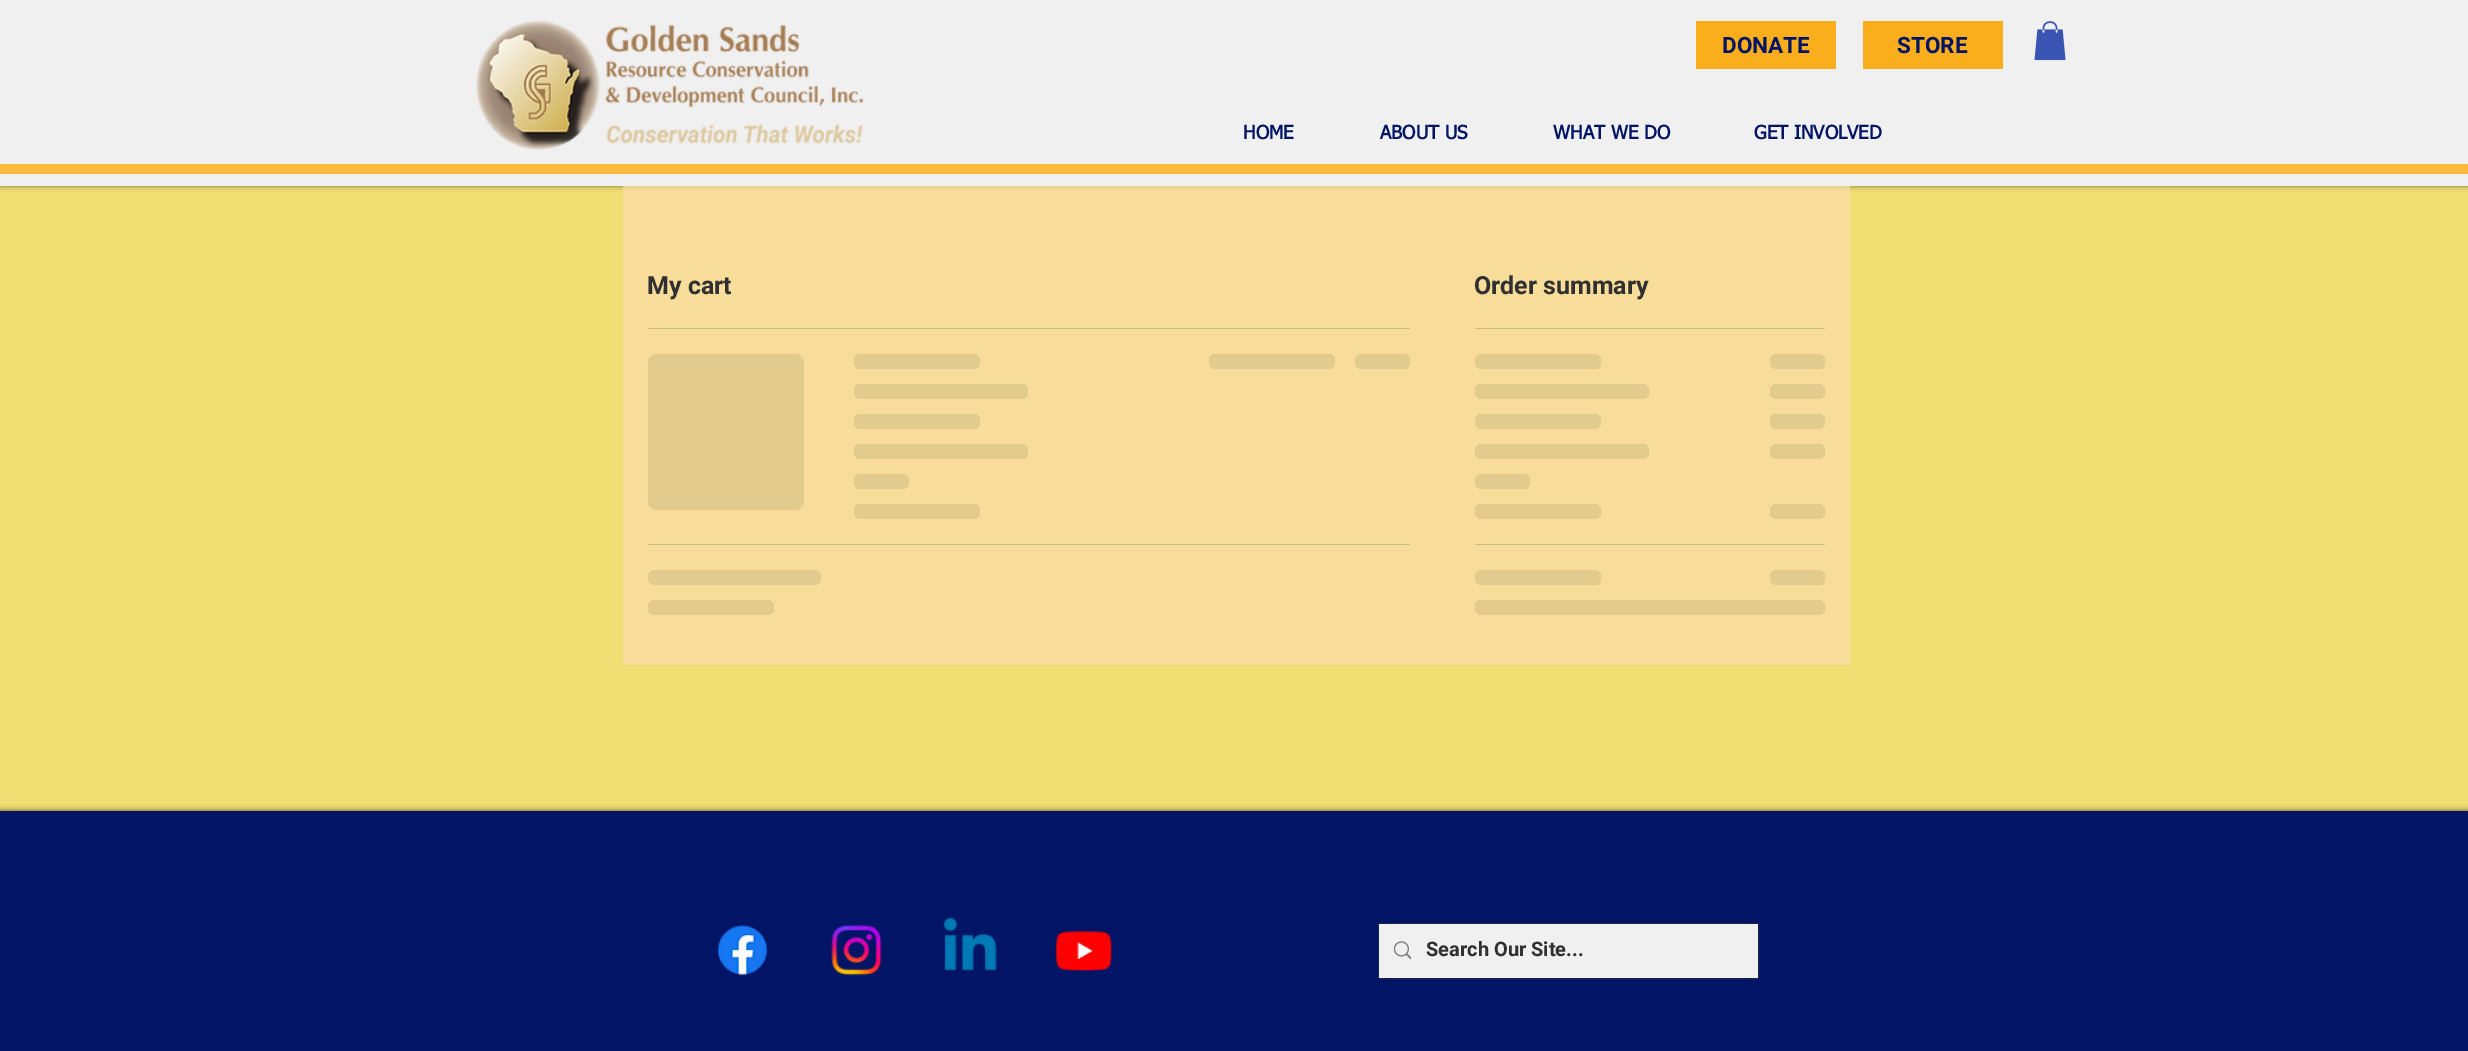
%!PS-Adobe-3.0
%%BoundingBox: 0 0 2468 1051
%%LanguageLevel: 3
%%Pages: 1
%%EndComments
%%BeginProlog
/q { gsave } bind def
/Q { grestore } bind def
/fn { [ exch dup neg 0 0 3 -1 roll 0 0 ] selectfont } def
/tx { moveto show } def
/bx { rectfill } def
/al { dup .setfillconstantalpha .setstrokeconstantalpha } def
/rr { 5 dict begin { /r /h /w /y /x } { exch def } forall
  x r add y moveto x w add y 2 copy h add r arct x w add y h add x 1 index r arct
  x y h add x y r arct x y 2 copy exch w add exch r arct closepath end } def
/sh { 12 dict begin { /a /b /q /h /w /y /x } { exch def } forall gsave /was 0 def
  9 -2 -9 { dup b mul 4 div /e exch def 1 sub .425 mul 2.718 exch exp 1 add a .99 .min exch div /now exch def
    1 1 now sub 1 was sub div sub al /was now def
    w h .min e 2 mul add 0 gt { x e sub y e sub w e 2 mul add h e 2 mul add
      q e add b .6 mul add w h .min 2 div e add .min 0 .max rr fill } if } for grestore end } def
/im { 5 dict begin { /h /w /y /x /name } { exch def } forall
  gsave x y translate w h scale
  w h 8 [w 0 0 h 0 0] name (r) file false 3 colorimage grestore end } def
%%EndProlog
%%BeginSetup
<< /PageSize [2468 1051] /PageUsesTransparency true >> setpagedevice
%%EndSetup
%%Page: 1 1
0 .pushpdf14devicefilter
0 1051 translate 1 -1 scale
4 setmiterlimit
0.949 0.875 0.455 setrgbcolor
0 0 2468 1051 bx
0 setgray
0 0 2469 186 0 3 0.5 sh
0.941 setgray
0 0 2468 186 bx
(image0.raw) 476 20 388 130 im
0.984 0.682 0.11 setrgbcolor
1696 21 140 48 bx
/Roboto-Bold 22.5 fn
0.004 0.078 0.396 setrgbcolor
(DONATE) 1722 53 tx
0.984 0.682 0.11 setrgbcolor
1863 21 140 48 bx
0.004 0.078 0.396 setrgbcolor
(STORE) 1897 53 tx
(image1.raw) 2034 21 32 40 im
/tahoma-Bold 18.75 fn
(HOME) 1243 139 tx
(ABOUT US) 1380 139 tx
(WHAT WE DO) 1553 139 tx
(GET INVOLVED) 1754 139 tx
0.988 0.725 0.227 setrgbcolor
0 164 2468 10 bx
0.74 al
0.976 0.863 0.651 setrgbcolor
623 186 1227 479 bx
1 al
0.812 0.729 0.518 setrgbcolor
648 328 762 1 bx
/Roboto-Bold 25 fn
0.188 setgray
(My cart) 647 294 tx
q 648 354 156 156 10 rr clip newpath
<< /ShadingType 2 /ColorSpace /DeviceRGB /Coords [648 432 1273 432] /Extend [true true] /Function << /FunctionType 3 /Domain [0 1] /Functions [<< /FunctionType 2 /Domain [0 1] /C0 [0.89 0.796 0.557] /C1 [0.89 0.796 0.557] /N 1 >> << /FunctionType 2 /Domain [0 1] /C0 [0.89 0.796 0.557] /C1 [0.812 0.729 0.518] /N 1 >> << /FunctionType 2 /Domain [0 1] /C0 [0.812 0.729 0.518] /C1 [0.89 0.796 0.557] /N 1 >> << /FunctionType 2 /Domain [0 1] /C0 [0.89 0.796 0.557] /C1 [0.89 0.796 0.557] /N 1 >>] /Bounds [0.25 0.37 0.63] /Encode [0 1 0 1 0 1 0 1] >> >> shfill Q
q 854 354 126 15 7.5 rr clip newpath
<< /ShadingType 2 /ColorSpace /DeviceRGB /Coords [854 361 1359 361] /Extend [true true] /Function << /FunctionType 3 /Domain [0 1] /Functions [<< /FunctionType 2 /Domain [0 1] /C0 [0.89 0.796 0.557] /C1 [0.89 0.796 0.557] /N 1 >> << /FunctionType 2 /Domain [0 1] /C0 [0.89 0.796 0.557] /C1 [0.812 0.729 0.518] /N 1 >> << /FunctionType 2 /Domain [0 1] /C0 [0.812 0.729 0.518] /C1 [0.89 0.796 0.557] /N 1 >> << /FunctionType 2 /Domain [0 1] /C0 [0.89 0.796 0.557] /C1 [0.89 0.796 0.557] /N 1 >>] /Bounds [0.25 0.37 0.63] /Encode [0 1 0 1 0 1 0 1] >> >> shfill Q
q 854 384 174 15 7.5 rr clip newpath
<< /ShadingType 2 /ColorSpace /DeviceRGB /Coords [854 391 1549 391] /Extend [true true] /Function << /FunctionType 3 /Domain [0 1] /Functions [<< /FunctionType 2 /Domain [0 1] /C0 [0.89 0.796 0.557] /C1 [0.89 0.796 0.557] /N 1 >> << /FunctionType 2 /Domain [0 1] /C0 [0.89 0.796 0.557] /C1 [0.812 0.729 0.518] /N 1 >> << /FunctionType 2 /Domain [0 1] /C0 [0.812 0.729 0.518] /C1 [0.89 0.796 0.557] /N 1 >> << /FunctionType 2 /Domain [0 1] /C0 [0.89 0.796 0.557] /C1 [0.89 0.796 0.557] /N 1 >>] /Bounds [0.25 0.37 0.63] /Encode [0 1 0 1 0 1 0 1] >> >> shfill Q
q 854 414 126 15 7.5 rr clip newpath
<< /ShadingType 2 /ColorSpace /DeviceRGB /Coords [854 421 1359 421] /Extend [true true] /Function << /FunctionType 3 /Domain [0 1] /Functions [<< /FunctionType 2 /Domain [0 1] /C0 [0.89 0.796 0.557] /C1 [0.89 0.796 0.557] /N 1 >> << /FunctionType 2 /Domain [0 1] /C0 [0.89 0.796 0.557] /C1 [0.812 0.729 0.518] /N 1 >> << /FunctionType 2 /Domain [0 1] /C0 [0.812 0.729 0.518] /C1 [0.89 0.796 0.557] /N 1 >> << /FunctionType 2 /Domain [0 1] /C0 [0.89 0.796 0.557] /C1 [0.89 0.796 0.557] /N 1 >>] /Bounds [0.25 0.37 0.63] /Encode [0 1 0 1 0 1 0 1] >> >> shfill Q
q 854 444 174 15 7.5 rr clip newpath
<< /ShadingType 2 /ColorSpace /DeviceRGB /Coords [854 451 1549 451] /Extend [true true] /Function << /FunctionType 3 /Domain [0 1] /Functions [<< /FunctionType 2 /Domain [0 1] /C0 [0.89 0.796 0.557] /C1 [0.89 0.796 0.557] /N 1 >> << /FunctionType 2 /Domain [0 1] /C0 [0.89 0.796 0.557] /C1 [0.812 0.729 0.518] /N 1 >> << /FunctionType 2 /Domain [0 1] /C0 [0.812 0.729 0.518] /C1 [0.89 0.796 0.557] /N 1 >> << /FunctionType 2 /Domain [0 1] /C0 [0.89 0.796 0.557] /C1 [0.89 0.796 0.557] /N 1 >>] /Bounds [0.25 0.37 0.63] /Encode [0 1 0 1 0 1 0 1] >> >> shfill Q
q 854 474 55 15 7.5 rr clip newpath
<< /ShadingType 2 /ColorSpace /DeviceRGB /Coords [854 481 1074 481] /Extend [true true] /Function << /FunctionType 3 /Domain [0 1] /Functions [<< /FunctionType 2 /Domain [0 1] /C0 [0.89 0.796 0.557] /C1 [0.89 0.796 0.557] /N 1 >> << /FunctionType 2 /Domain [0 1] /C0 [0.89 0.796 0.557] /C1 [0.812 0.729 0.518] /N 1 >> << /FunctionType 2 /Domain [0 1] /C0 [0.812 0.729 0.518] /C1 [0.89 0.796 0.557] /N 1 >> << /FunctionType 2 /Domain [0 1] /C0 [0.89 0.796 0.557] /C1 [0.89 0.796 0.557] /N 1 >>] /Bounds [0.25 0.37 0.63] /Encode [0 1 0 1 0 1 0 1] >> >> shfill Q
q 854 504 126 15 7.5 rr clip newpath
<< /ShadingType 2 /ColorSpace /DeviceRGB /Coords [854 511 1359 511] /Extend [true true] /Function << /FunctionType 3 /Domain [0 1] /Functions [<< /FunctionType 2 /Domain [0 1] /C0 [0.89 0.796 0.557] /C1 [0.89 0.796 0.557] /N 1 >> << /FunctionType 2 /Domain [0 1] /C0 [0.89 0.796 0.557] /C1 [0.812 0.729 0.518] /N 1 >> << /FunctionType 2 /Domain [0 1] /C0 [0.812 0.729 0.518] /C1 [0.89 0.796 0.557] /N 1 >> << /FunctionType 2 /Domain [0 1] /C0 [0.89 0.796 0.557] /C1 [0.89 0.796 0.557] /N 1 >>] /Bounds [0.25 0.37 0.63] /Encode [0 1 0 1 0 1 0 1] >> >> shfill Q
q 1209 354 126 15 7.5 rr clip newpath
<< /ShadingType 2 /ColorSpace /DeviceRGB /Coords [1209 361 1714 361] /Extend [true true] /Function << /FunctionType 3 /Domain [0 1] /Functions [<< /FunctionType 2 /Domain [0 1] /C0 [0.89 0.796 0.557] /C1 [0.89 0.796 0.557] /N 1 >> << /FunctionType 2 /Domain [0 1] /C0 [0.89 0.796 0.557] /C1 [0.812 0.729 0.518] /N 1 >> << /FunctionType 2 /Domain [0 1] /C0 [0.812 0.729 0.518] /C1 [0.89 0.796 0.557] /N 1 >> << /FunctionType 2 /Domain [0 1] /C0 [0.89 0.796 0.557] /C1 [0.89 0.796 0.557] /N 1 >>] /Bounds [0.25 0.37 0.63] /Encode [0 1 0 1 0 1 0 1] >> >> shfill Q
q 1355 354 55 15 7.5 rr clip newpath
<< /ShadingType 2 /ColorSpace /DeviceRGB /Coords [1355 361 1575 361] /Extend [true true] /Function << /FunctionType 3 /Domain [0 1] /Functions [<< /FunctionType 2 /Domain [0 1] /C0 [0.89 0.796 0.557] /C1 [0.89 0.796 0.557] /N 1 >> << /FunctionType 2 /Domain [0 1] /C0 [0.89 0.796 0.557] /C1 [0.812 0.729 0.518] /N 1 >> << /FunctionType 2 /Domain [0 1] /C0 [0.812 0.729 0.518] /C1 [0.89 0.796 0.557] /N 1 >> << /FunctionType 2 /Domain [0 1] /C0 [0.89 0.796 0.557] /C1 [0.89 0.796 0.557] /N 1 >>] /Bounds [0.25 0.37 0.63] /Encode [0 1 0 1 0 1 0 1] >> >> shfill Q
0.812 0.729 0.518 setrgbcolor
648 544 762 1 bx
q 648 570 173 15 7.5 rr clip newpath
<< /ShadingType 2 /ColorSpace /DeviceRGB /Coords [648 578 1343 578] /Extend [true true] /Function << /FunctionType 3 /Domain [0 1] /Functions [<< /FunctionType 2 /Domain [0 1] /C0 [0.89 0.796 0.557] /C1 [0.89 0.796 0.557] /N 1 >> << /FunctionType 2 /Domain [0 1] /C0 [0.89 0.796 0.557] /C1 [0.812 0.729 0.518] /N 1 >> << /FunctionType 2 /Domain [0 1] /C0 [0.812 0.729 0.518] /C1 [0.89 0.796 0.557] /N 1 >> << /FunctionType 2 /Domain [0 1] /C0 [0.89 0.796 0.557] /C1 [0.89 0.796 0.557] /N 1 >>] /Bounds [0.25 0.37 0.63] /Encode [0 1 0 1 0 1 0 1] >> >> shfill Q
q 648 600 126 15 7.5 rr clip newpath
<< /ShadingType 2 /ColorSpace /DeviceRGB /Coords [648 608 1153 608] /Extend [true true] /Function << /FunctionType 3 /Domain [0 1] /Functions [<< /FunctionType 2 /Domain [0 1] /C0 [0.89 0.796 0.557] /C1 [0.89 0.796 0.557] /N 1 >> << /FunctionType 2 /Domain [0 1] /C0 [0.89 0.796 0.557] /C1 [0.812 0.729 0.518] /N 1 >> << /FunctionType 2 /Domain [0 1] /C0 [0.812 0.729 0.518] /C1 [0.89 0.796 0.557] /N 1 >> << /FunctionType 2 /Domain [0 1] /C0 [0.89 0.796 0.557] /C1 [0.89 0.796 0.557] /N 1 >>] /Bounds [0.25 0.37 0.63] /Encode [0 1 0 1 0 1 0 1] >> >> shfill Q
1475 328 350 1 bx
0.188 setgray
(Order summary) 1474 294 tx
q 1475 354 126 15 7.5 rr clip newpath
<< /ShadingType 2 /ColorSpace /DeviceRGB /Coords [1475 361 1980 361] /Extend [true true] /Function << /FunctionType 3 /Domain [0 1] /Functions [<< /FunctionType 2 /Domain [0 1] /C0 [0.89 0.796 0.557] /C1 [0.89 0.796 0.557] /N 1 >> << /FunctionType 2 /Domain [0 1] /C0 [0.89 0.796 0.557] /C1 [0.812 0.729 0.518] /N 1 >> << /FunctionType 2 /Domain [0 1] /C0 [0.812 0.729 0.518] /C1 [0.89 0.796 0.557] /N 1 >> << /FunctionType 2 /Domain [0 1] /C0 [0.89 0.796 0.557] /C1 [0.89 0.796 0.557] /N 1 >>] /Bounds [0.25 0.37 0.63] /Encode [0 1 0 1 0 1 0 1] >> >> shfill Q
q 1770 354 55 15 7.5 rr clip newpath
<< /ShadingType 2 /ColorSpace /DeviceRGB /Coords [1770 361 1990 361] /Extend [true true] /Function << /FunctionType 3 /Domain [0 1] /Functions [<< /FunctionType 2 /Domain [0 1] /C0 [0.89 0.796 0.557] /C1 [0.89 0.796 0.557] /N 1 >> << /FunctionType 2 /Domain [0 1] /C0 [0.89 0.796 0.557] /C1 [0.812 0.729 0.518] /N 1 >> << /FunctionType 2 /Domain [0 1] /C0 [0.812 0.729 0.518] /C1 [0.89 0.796 0.557] /N 1 >> << /FunctionType 2 /Domain [0 1] /C0 [0.89 0.796 0.557] /C1 [0.89 0.796 0.557] /N 1 >>] /Bounds [0.25 0.37 0.63] /Encode [0 1 0 1 0 1 0 1] >> >> shfill Q
q 1475 384 174 15 7.5 rr clip newpath
<< /ShadingType 2 /ColorSpace /DeviceRGB /Coords [1475 391 2170 391] /Extend [true true] /Function << /FunctionType 3 /Domain [0 1] /Functions [<< /FunctionType 2 /Domain [0 1] /C0 [0.89 0.796 0.557] /C1 [0.89 0.796 0.557] /N 1 >> << /FunctionType 2 /Domain [0 1] /C0 [0.89 0.796 0.557] /C1 [0.812 0.729 0.518] /N 1 >> << /FunctionType 2 /Domain [0 1] /C0 [0.812 0.729 0.518] /C1 [0.89 0.796 0.557] /N 1 >> << /FunctionType 2 /Domain [0 1] /C0 [0.89 0.796 0.557] /C1 [0.89 0.796 0.557] /N 1 >>] /Bounds [0.25 0.37 0.63] /Encode [0 1 0 1 0 1 0 1] >> >> shfill Q
q 1770 384 55 15 7.5 rr clip newpath
<< /ShadingType 2 /ColorSpace /DeviceRGB /Coords [1770 391 1990 391] /Extend [true true] /Function << /FunctionType 3 /Domain [0 1] /Functions [<< /FunctionType 2 /Domain [0 1] /C0 [0.89 0.796 0.557] /C1 [0.89 0.796 0.557] /N 1 >> << /FunctionType 2 /Domain [0 1] /C0 [0.89 0.796 0.557] /C1 [0.812 0.729 0.518] /N 1 >> << /FunctionType 2 /Domain [0 1] /C0 [0.812 0.729 0.518] /C1 [0.89 0.796 0.557] /N 1 >> << /FunctionType 2 /Domain [0 1] /C0 [0.89 0.796 0.557] /C1 [0.89 0.796 0.557] /N 1 >>] /Bounds [0.25 0.37 0.63] /Encode [0 1 0 1 0 1 0 1] >> >> shfill Q
q 1475 414 126 15 7.5 rr clip newpath
<< /ShadingType 2 /ColorSpace /DeviceRGB /Coords [1475 421 1980 421] /Extend [true true] /Function << /FunctionType 3 /Domain [0 1] /Functions [<< /FunctionType 2 /Domain [0 1] /C0 [0.89 0.796 0.557] /C1 [0.89 0.796 0.557] /N 1 >> << /FunctionType 2 /Domain [0 1] /C0 [0.89 0.796 0.557] /C1 [0.812 0.729 0.518] /N 1 >> << /FunctionType 2 /Domain [0 1] /C0 [0.812 0.729 0.518] /C1 [0.89 0.796 0.557] /N 1 >> << /FunctionType 2 /Domain [0 1] /C0 [0.89 0.796 0.557] /C1 [0.89 0.796 0.557] /N 1 >>] /Bounds [0.25 0.37 0.63] /Encode [0 1 0 1 0 1 0 1] >> >> shfill Q
q 1770 414 55 15 7.5 rr clip newpath
<< /ShadingType 2 /ColorSpace /DeviceRGB /Coords [1770 421 1990 421] /Extend [true true] /Function << /FunctionType 3 /Domain [0 1] /Functions [<< /FunctionType 2 /Domain [0 1] /C0 [0.89 0.796 0.557] /C1 [0.89 0.796 0.557] /N 1 >> << /FunctionType 2 /Domain [0 1] /C0 [0.89 0.796 0.557] /C1 [0.812 0.729 0.518] /N 1 >> << /FunctionType 2 /Domain [0 1] /C0 [0.812 0.729 0.518] /C1 [0.89 0.796 0.557] /N 1 >> << /FunctionType 2 /Domain [0 1] /C0 [0.89 0.796 0.557] /C1 [0.89 0.796 0.557] /N 1 >>] /Bounds [0.25 0.37 0.63] /Encode [0 1 0 1 0 1 0 1] >> >> shfill Q
q 1475 444 174 15 7.5 rr clip newpath
<< /ShadingType 2 /ColorSpace /DeviceRGB /Coords [1475 451 2170 451] /Extend [true true] /Function << /FunctionType 3 /Domain [0 1] /Functions [<< /FunctionType 2 /Domain [0 1] /C0 [0.89 0.796 0.557] /C1 [0.89 0.796 0.557] /N 1 >> << /FunctionType 2 /Domain [0 1] /C0 [0.89 0.796 0.557] /C1 [0.812 0.729 0.518] /N 1 >> << /FunctionType 2 /Domain [0 1] /C0 [0.812 0.729 0.518] /C1 [0.89 0.796 0.557] /N 1 >> << /FunctionType 2 /Domain [0 1] /C0 [0.89 0.796 0.557] /C1 [0.89 0.796 0.557] /N 1 >>] /Bounds [0.25 0.37 0.63] /Encode [0 1 0 1 0 1 0 1] >> >> shfill Q
q 1770 444 55 15 7.5 rr clip newpath
<< /ShadingType 2 /ColorSpace /DeviceRGB /Coords [1770 451 1990 451] /Extend [true true] /Function << /FunctionType 3 /Domain [0 1] /Functions [<< /FunctionType 2 /Domain [0 1] /C0 [0.89 0.796 0.557] /C1 [0.89 0.796 0.557] /N 1 >> << /FunctionType 2 /Domain [0 1] /C0 [0.89 0.796 0.557] /C1 [0.812 0.729 0.518] /N 1 >> << /FunctionType 2 /Domain [0 1] /C0 [0.812 0.729 0.518] /C1 [0.89 0.796 0.557] /N 1 >> << /FunctionType 2 /Domain [0 1] /C0 [0.89 0.796 0.557] /C1 [0.89 0.796 0.557] /N 1 >>] /Bounds [0.25 0.37 0.63] /Encode [0 1 0 1 0 1 0 1] >> >> shfill Q
q 1475 474 55 15 7.5 rr clip newpath
<< /ShadingType 2 /ColorSpace /DeviceRGB /Coords [1475 481 1695 481] /Extend [true true] /Function << /FunctionType 3 /Domain [0 1] /Functions [<< /FunctionType 2 /Domain [0 1] /C0 [0.89 0.796 0.557] /C1 [0.89 0.796 0.557] /N 1 >> << /FunctionType 2 /Domain [0 1] /C0 [0.89 0.796 0.557] /C1 [0.812 0.729 0.518] /N 1 >> << /FunctionType 2 /Domain [0 1] /C0 [0.812 0.729 0.518] /C1 [0.89 0.796 0.557] /N 1 >> << /FunctionType 2 /Domain [0 1] /C0 [0.89 0.796 0.557] /C1 [0.89 0.796 0.557] /N 1 >>] /Bounds [0.25 0.37 0.63] /Encode [0 1 0 1 0 1 0 1] >> >> shfill Q
q 1475 504 126 15 7.5 rr clip newpath
<< /ShadingType 2 /ColorSpace /DeviceRGB /Coords [1475 511 1980 511] /Extend [true true] /Function << /FunctionType 3 /Domain [0 1] /Functions [<< /FunctionType 2 /Domain [0 1] /C0 [0.89 0.796 0.557] /C1 [0.89 0.796 0.557] /N 1 >> << /FunctionType 2 /Domain [0 1] /C0 [0.89 0.796 0.557] /C1 [0.812 0.729 0.518] /N 1 >> << /FunctionType 2 /Domain [0 1] /C0 [0.812 0.729 0.518] /C1 [0.89 0.796 0.557] /N 1 >> << /FunctionType 2 /Domain [0 1] /C0 [0.89 0.796 0.557] /C1 [0.89 0.796 0.557] /N 1 >>] /Bounds [0.25 0.37 0.63] /Encode [0 1 0 1 0 1 0 1] >> >> shfill Q
q 1770 504 55 15 7.5 rr clip newpath
<< /ShadingType 2 /ColorSpace /DeviceRGB /Coords [1770 511 1990 511] /Extend [true true] /Function << /FunctionType 3 /Domain [0 1] /Functions [<< /FunctionType 2 /Domain [0 1] /C0 [0.89 0.796 0.557] /C1 [0.89 0.796 0.557] /N 1 >> << /FunctionType 2 /Domain [0 1] /C0 [0.89 0.796 0.557] /C1 [0.812 0.729 0.518] /N 1 >> << /FunctionType 2 /Domain [0 1] /C0 [0.812 0.729 0.518] /C1 [0.89 0.796 0.557] /N 1 >> << /FunctionType 2 /Domain [0 1] /C0 [0.89 0.796 0.557] /C1 [0.89 0.796 0.557] /N 1 >>] /Bounds [0.25 0.37 0.63] /Encode [0 1 0 1 0 1 0 1] >> >> shfill Q
0.812 0.729 0.518 setrgbcolor
1475 544 350 1 bx
q 1475 570 126 15 7.5 rr clip newpath
<< /ShadingType 2 /ColorSpace /DeviceRGB /Coords [1475 578 1980 578] /Extend [true true] /Function << /FunctionType 3 /Domain [0 1] /Functions [<< /FunctionType 2 /Domain [0 1] /C0 [0.89 0.796 0.557] /C1 [0.89 0.796 0.557] /N 1 >> << /FunctionType 2 /Domain [0 1] /C0 [0.89 0.796 0.557] /C1 [0.812 0.729 0.518] /N 1 >> << /FunctionType 2 /Domain [0 1] /C0 [0.812 0.729 0.518] /C1 [0.89 0.796 0.557] /N 1 >> << /FunctionType 2 /Domain [0 1] /C0 [0.89 0.796 0.557] /C1 [0.89 0.796 0.557] /N 1 >>] /Bounds [0.25 0.37 0.63] /Encode [0 1 0 1 0 1 0 1] >> >> shfill Q
q 1770 570 55 15 7.5 rr clip newpath
<< /ShadingType 2 /ColorSpace /DeviceRGB /Coords [1770 578 1990 578] /Extend [true true] /Function << /FunctionType 3 /Domain [0 1] /Functions [<< /FunctionType 2 /Domain [0 1] /C0 [0.89 0.796 0.557] /C1 [0.89 0.796 0.557] /N 1 >> << /FunctionType 2 /Domain [0 1] /C0 [0.89 0.796 0.557] /C1 [0.812 0.729 0.518] /N 1 >> << /FunctionType 2 /Domain [0 1] /C0 [0.812 0.729 0.518] /C1 [0.89 0.796 0.557] /N 1 >> << /FunctionType 2 /Domain [0 1] /C0 [0.89 0.796 0.557] /C1 [0.89 0.796 0.557] /N 1 >>] /Bounds [0.25 0.37 0.63] /Encode [0 1 0 1 0 1 0 1] >> >> shfill Q
q 1475 600 350 15 7.5 rr clip newpath
<< /ShadingType 2 /ColorSpace /DeviceRGB /Coords [1475 608 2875 607] /Extend [true true] /Function << /FunctionType 3 /Domain [0 1] /Functions [<< /FunctionType 2 /Domain [0 1] /C0 [0.89 0.796 0.557] /C1 [0.89 0.796 0.557] /N 1 >> << /FunctionType 2 /Domain [0 1] /C0 [0.89 0.796 0.557] /C1 [0.812 0.729 0.518] /N 1 >> << /FunctionType 2 /Domain [0 1] /C0 [0.812 0.729 0.518] /C1 [0.89 0.796 0.557] /N 1 >> << /FunctionType 2 /Domain [0 1] /C0 [0.89 0.796 0.557] /C1 [0.89 0.796 0.557] /N 1 >>] /Bounds [0.25 0.37 0.63] /Encode [0 1 0 1 0 1 0 1] >> >> shfill Q
0 setgray
0 811 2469 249 0 3 0.7 sh
0.004 0.078 0.396 setrgbcolor
0 811 2468 240 bx
(image2.raw) 717 925 51 51 im
(image3.raw) 831 924 51 52 im
(image4.raw) 943 917 54 54 im
(image5.raw) 1055 931 57 41 im
0.114 0.145 0.271 setrgbcolor
1378.5 923.5 380 55 rectstroke
0.941 setgray
1379 924 379 54 bx
(image6.raw) 1394 941 17 19 im
/Roboto-Bold 20 fn
0.188 setgray
(Search Our Site...) 1426 956 tx
.poppdf14devicefilter showpage
%%EOF
